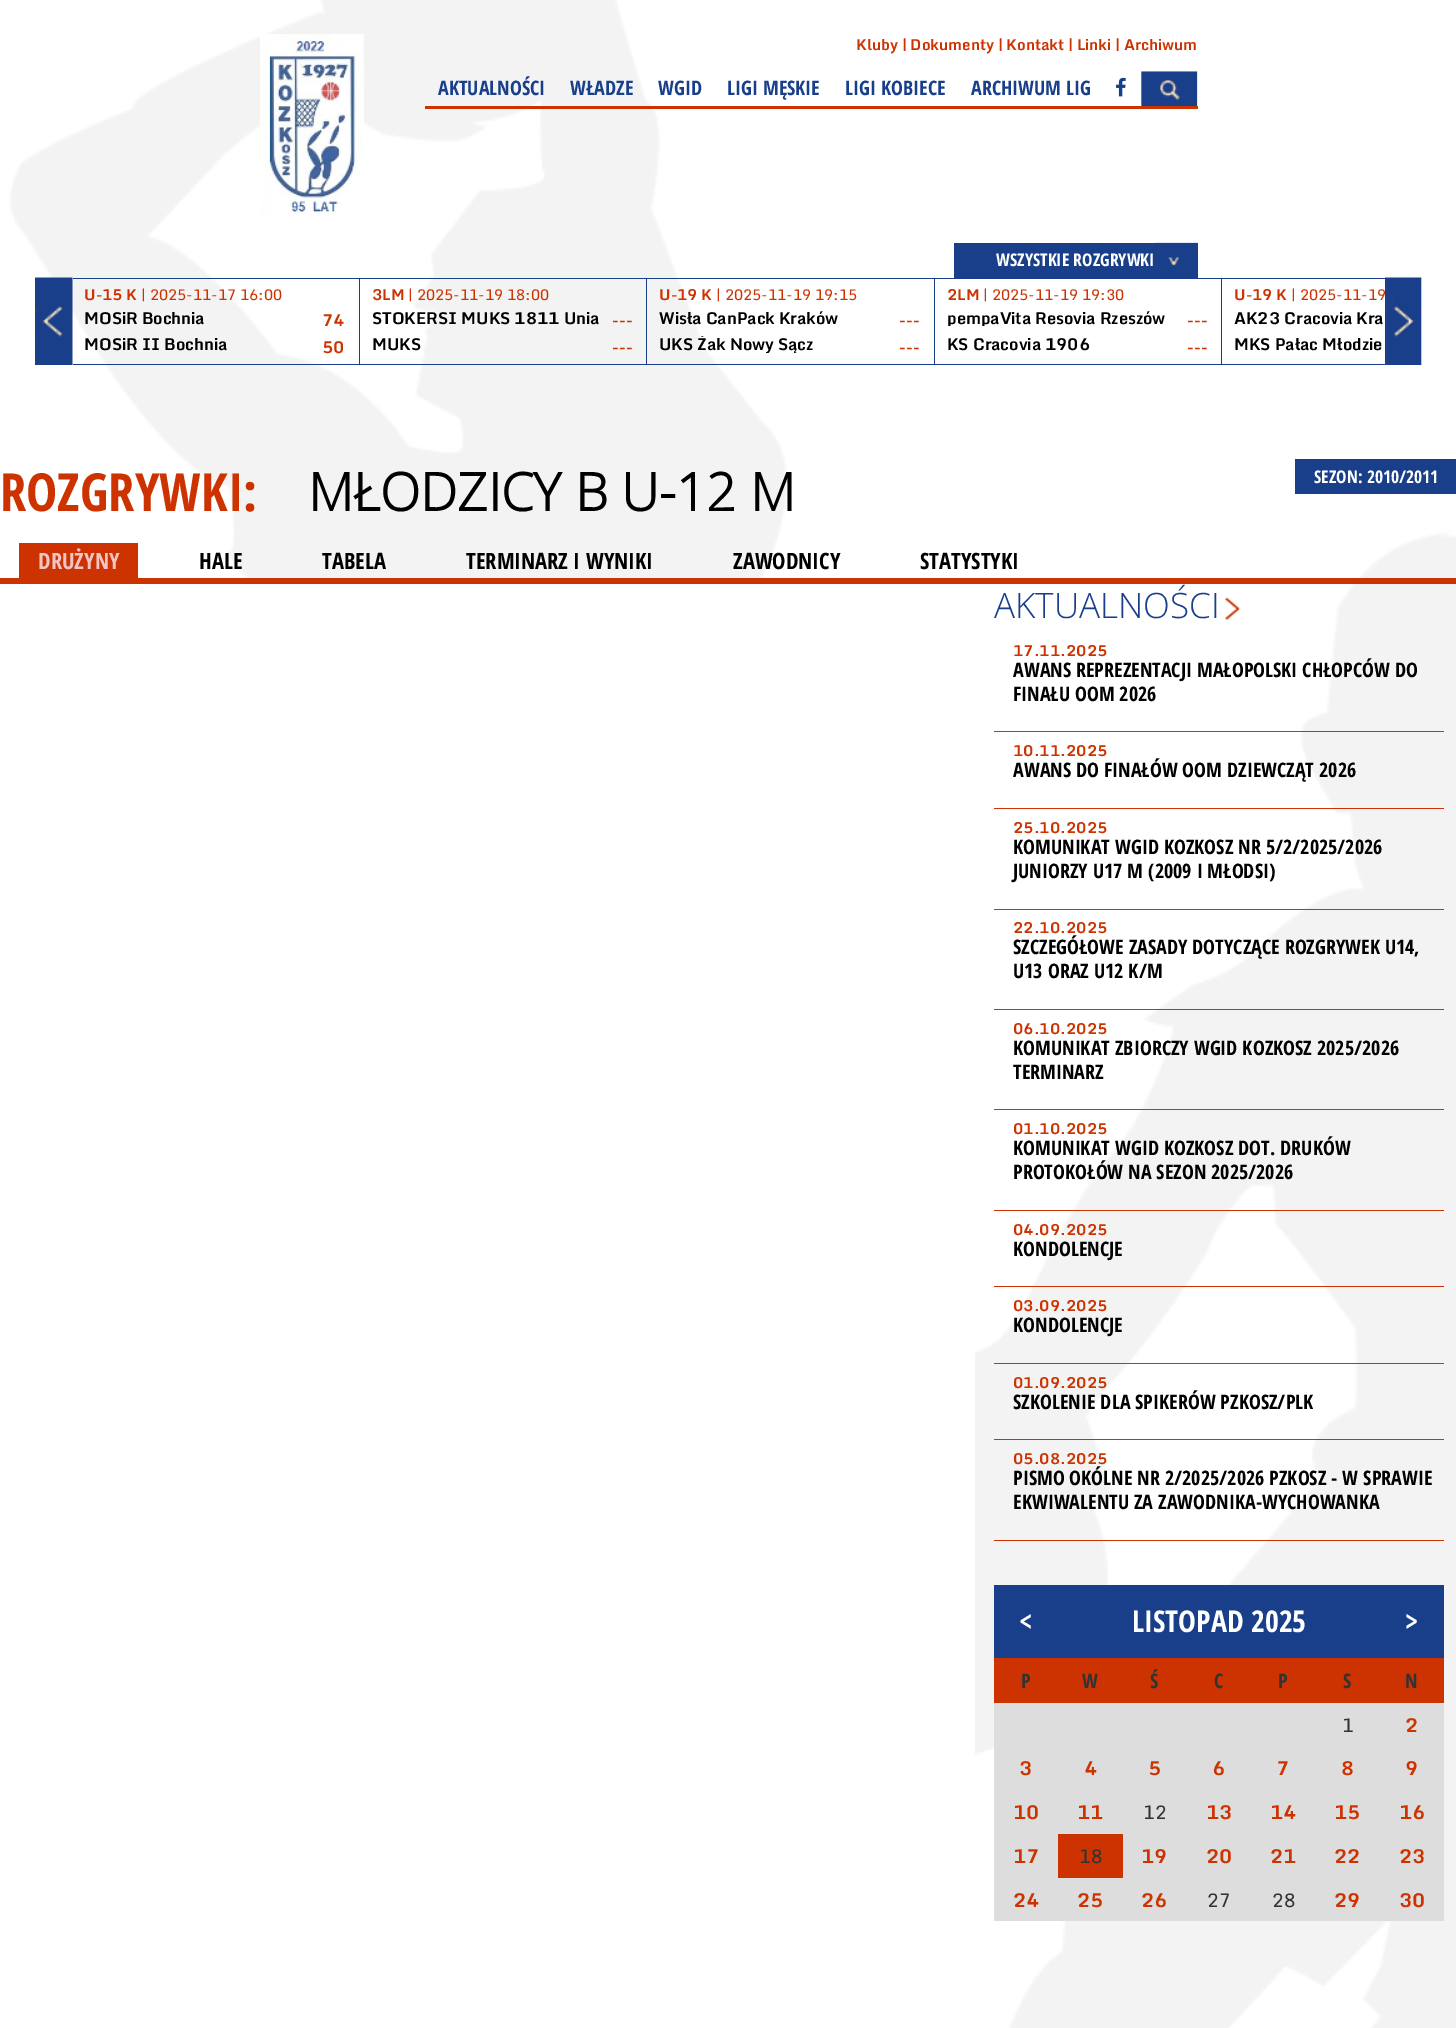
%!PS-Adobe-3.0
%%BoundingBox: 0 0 1456 2028
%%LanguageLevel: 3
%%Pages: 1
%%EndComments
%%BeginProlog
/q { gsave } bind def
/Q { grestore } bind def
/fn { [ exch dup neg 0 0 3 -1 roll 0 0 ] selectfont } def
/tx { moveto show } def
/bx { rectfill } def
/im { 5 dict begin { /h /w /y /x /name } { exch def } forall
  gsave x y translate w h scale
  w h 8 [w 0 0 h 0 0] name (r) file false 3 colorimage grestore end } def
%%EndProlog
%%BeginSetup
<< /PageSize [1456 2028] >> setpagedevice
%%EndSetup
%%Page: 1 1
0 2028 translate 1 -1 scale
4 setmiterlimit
1 setgray
0 0 1456 2028 bx
(image0.raw) 9 0 1447 2028 im
(image1.raw) 260 34 104 182 im
/Monda-Bold 15 fn
0.8 0.2 0 setrgbcolor
(Kluby | Dokumenty | Kontakt | Linki | Archiwum) 856 50 tx
425 106 773 3 bx
/OpenSansCondensed-Bold 20 fn
0.098 0.247 0.541 setrgbcolor
(AKTUALNOŚCI) 438 95 tx
(WŁADZE) 570 95 tx
(WGID) 658 95 tx
(LIGI MĘSKIE) 727 95 tx
(LIGI KOBIECE) 845 95 tx
(ARCHIWUM LIG) 971 95 tx
(image2.raw) 1116 77 10 20 im
(image3.raw) 1141 71 57 35 im
954 243 244 35 bx
/OpenSansCondensed-Bold 17.5 fn
1 setgray
(WSZYSTKIE ROZGRYWKI) 996 266 tx
(image4.raw) 1155 242 42 24 im
(image5.raw) 35 277 38 88 im
0.098 0.247 0.541 setrgbcolor
73 278 1312 1 bx
359 278 1 87 bx
73 364 287 1 bx
/Monda-Bold 15 fn
0.8 0.2 0 setrgbcolor
(U-15 K) 84 300 tx
/Monda-Regular 15 fn
(| 2025-11-17 16:00) 141 300 tx
/Monda-Bold 16.25 fn
0 setgray
(MOSiR Bochnia) 84 324 tx
0.8 0.2 0 setrgbcolor
(74) 322 326 tx
0 setgray
(MOSiR II Bochnia) 84 350 tx
0.8 0.2 0 setrgbcolor
(50) 322 353 tx
0.098 0.247 0.541 setrgbcolor
646 278 1 87 bx
360 364 288 1 bx
/Monda-Bold 15 fn
0.8 0.2 0 setrgbcolor
(3LM) 372 300 tx
/Monda-Regular 15 fn
(| 2025-11-19 18:00) 408 300 tx
/Monda-Bold 16.25 fn
0 setgray
(STOKERSI MUKS 1811 Unia) 372 324 tx
0.8 0.2 0 setrgbcolor
(---) 612 326 tx
0 setgray
(MUKS) 372 350 tx
0.8 0.2 0 setrgbcolor
(---) 612 353 tx
0.098 0.247 0.541 setrgbcolor
934 278 1 87 bx
648 364 287 1 bx
/Monda-Bold 15 fn
0.8 0.2 0 setrgbcolor
(U-19 K) 659 300 tx
/Monda-Regular 15 fn
(| 2025-11-19 19:15) 716 300 tx
/Monda-Bold 16.25 fn
0 setgray
(Wisła CanPack Kraków) 659 324 tx
0.8 0.2 0 setrgbcolor
(---) 899 326 tx
q
660 336 231 17 rectclip
0 setgray
(UKS Żak Nowy Sącz) 659 350 tx
Q
(---) 899 353 tx
0.098 0.247 0.541 setrgbcolor
1221 278 1 87 bx
935 364 450 1 bx
/Monda-Bold 15 fn
0.8 0.2 0 setrgbcolor
(2LM) 947 300 tx
/Monda-Regular 15 fn
(| 2025-11-19 19:30) 983 300 tx
q
948 310 231 16 rectclip
/Monda-Bold 16.25 fn
0 setgray
(pempaVita Resovia Rzeszów) 947 324 tx
Q
/Monda-Bold 16.25 fn
(---) 1187 326 tx
0 setgray
(KS Cracovia 1906) 947 350 tx
0.8 0.2 0 setrgbcolor
(---) 1187 353 tx
/Monda-Bold 15 fn
(U-19 K) 1234 300 tx
q
73 278 1312 87 rectclip
/Monda-Regular 15 fn
(| 2025-11-19) 1291 300 tx
Q
/Monda-Bold 16.25 fn
0 setgray
(AK23 Cracovia Kra) 1234 324 tx
(MKS Pałac Młodzie) 1234 350 tx
(image6.raw) 1385 277 37 88 im
/OpenSansCondensed-Bold 52.5 fn
0.8 0.2 0 setrgbcolor
(ROZGRYWKI:) 0 511 tx
/OpenSans-Bold 52.5 fn
0 setgray
(MŁODZICY B U-12 M) 308 511 tx
0.098 0.247 0.541 setrgbcolor
1295 459 161 35 bx
/OpenSansCondensed-Bold 17.5 fn
1 setgray
(SEZON: 2010/2011) 1314 483 tx
0.8 0.2 0 setrgbcolor
0 578 1456 6 bx
19 543 119 35 bx
/OpenSansCondensed-Bold 22.5 fn
0.949 0.773 0.773 setrgbcolor
(DRUŻYNY) 38 569 tx
0 setgray
(HALE) 199 569 tx
(TABELA) 322 569 tx
(TERMINARZ I WYNIKI) 466 569 tx
(ZAWODNICY) 733 569 tx
(STATYSTYKI) 920 569 tx
1 setgray
9 584 966 1444 bx
/OpenSans-Light 35 fn
0.098 0.247 0.541 setrgbcolor
(AKTUALNOŚCI) 994 618 tx
(image7.raw) 1225 597 15 23 im
0.8 0.2 0 setrgbcolor
994 731 450 1 bx
/Monda-Bold 15 fn
(17.11.2025) 1013 656 tx
/OpenSansCondensed-Bold 20 fn
0 setgray
(AWANS REPREZENTACJI MAŁOPOLSKI CHŁOPCÓW DO) 1013 677 tx
(FINAŁU OOM 2026) 1013 701 tx
0.8 0.2 0 setrgbcolor
994 808 450 1 bx
/Monda-Bold 15 fn
(10.11.2025) 1013 756 tx
/OpenSansCondensed-Bold 20 fn
0 setgray
(AWANS DO FINAŁÓW OOM DZIEWCZĄT 2026) 1013 777 tx
0.8 0.2 0 setrgbcolor
994 909 450 1 bx
/Monda-Bold 15 fn
(25.10.2025) 1013 833 tx
/OpenSansCondensed-Bold 20 fn
0 setgray
(KOMUNIKAT WGID KOZKOSZ NR 5/2/2025/2026) 1013 854 tx
(JUNIORZY U17 M \(2009 I MŁODSI\)) 1013 878 tx
0.8 0.2 0 setrgbcolor
994 1009 450 1 bx
/Monda-Bold 15 fn
(22.10.2025) 1013 933 tx
/OpenSansCondensed-Bold 20 fn
0 setgray
(SZCZEGÓŁOWE ZASADY DOTYCZĄCE ROZGRYWEK U14,) 1013 954 tx
(U13 ORAZ U12 K/M) 1013 978 tx
0.8 0.2 0 setrgbcolor
994 1109 450 1 bx
/Monda-Bold 15 fn
(06.10.2025) 1013 1034 tx
/OpenSansCondensed-Bold 20 fn
0 setgray
(KOMUNIKAT ZBIORCZY WGID KOZKOSZ 2025/2026) 1013 1055 tx
(TERMINARZ) 1013 1079 tx
0.8 0.2 0 setrgbcolor
994 1210 450 1 bx
/Monda-Bold 15 fn
(01.10.2025) 1013 1134 tx
/OpenSansCondensed-Bold 20 fn
0 setgray
(KOMUNIKAT WGID KOZKOSZ DOT. DRUKÓW) 1013 1155 tx
(PROTOKOŁÓW NA SEZON 2025/2026) 1013 1179 tx
0.8 0.2 0 setrgbcolor
994 1286 450 1 bx
/Monda-Bold 15 fn
(04.09.2025) 1013 1235 tx
/OpenSansCondensed-Bold 20 fn
0 setgray
(KONDOLENCJE) 1013 1256 tx
0.8 0.2 0 setrgbcolor
994 1363 450 1 bx
/Monda-Bold 15 fn
(03.09.2025) 1013 1311 tx
/OpenSansCondensed-Bold 20 fn
0 setgray
(KONDOLENCJE) 1013 1332 tx
0.8 0.2 0 setrgbcolor
994 1439 450 1 bx
/Monda-Bold 15 fn
(01.09.2025) 1013 1388 tx
/OpenSansCondensed-Bold 20 fn
0 setgray
(SZKOLENIE DLA SPIKERÓW PZKOSZ/PLK) 1013 1409 tx
0.8 0.2 0 setrgbcolor
994 1540 450 1 bx
/Monda-Bold 15 fn
(05.08.2025) 1013 1464 tx
/OpenSansCondensed-Bold 20 fn
0 setgray
(PISMO OKÓLNE NR 2/2025/2026 PZKOSZ - W SPRAWIE) 1013 1485 tx
(EKWIWALENTU ZA ZAWODNIKA-WYCHOWANKA) 1013 1509 tx
0.867 setgray
994 1703 450 218 bx
0.098 0.247 0.541 setrgbcolor
994 1585 450 73 bx
/OpenSansCondensed-Bold 30 fn
1 setgray
(<) 1019 1632 tx
(LISTOPAD 2025) 1132 1632 tx
(>) 1405 1632 tx
0.8 0.2 0 setrgbcolor
994 1658 450 45 bx
/OpenSansCondensed-Bold 20 fn
0.2 setgray
(P) 1021 1688 tx
(W) 1082 1688 tx
(Ś) 1150 1688 tx
(C) 1214 1688 tx
(P) 1278 1688 tx
(S) 1343 1688 tx
(N) 1405 1688 tx
/Monda-Regular 19 fn
(1) 1342 1732 tx
/Monda-Bold 19 fn
0.8 0.2 0 setrgbcolor
(2) 1405 1732 tx
(3) 1019 1775 tx
(4) 1084 1775 tx
(5) 1148 1775 tx
(6) 1212 1775 tx
(7) 1276 1775 tx
(8) 1341 1775 tx
(9) 1405 1775 tx
(10) 1013 1819 tx
(11) 1077 1819 tx
/Monda-Regular 19 fn
0.2 setgray
(12) 1143 1819 tx
/Monda-Bold 19 fn
0.8 0.2 0 setrgbcolor
(13) 1206 1819 tx
(14) 1270 1819 tx
(15) 1334 1819 tx
(16) 1399 1819 tx
(17) 1013 1863 tx
1058 1834 65 44 bx
/Monda-Regular 19 fn
0.2 setgray
(18) 1079 1863 tx
/Monda-Bold 19 fn
0.8 0.2 0 setrgbcolor
(19) 1141 1863 tx
(20) 1206 1863 tx
(21) 1270 1863 tx
(22) 1334 1863 tx
(23) 1399 1863 tx
(24) 1013 1907 tx
(25) 1077 1907 tx
(26) 1141 1907 tx
/Monda-Regular 19 fn
0.2 setgray
(27) 1207 1907 tx
(28) 1272 1907 tx
/Monda-Bold 19 fn
0.8 0.2 0 setrgbcolor
(29) 1334 1907 tx
(30) 1399 1907 tx
showpage
%%EOF
